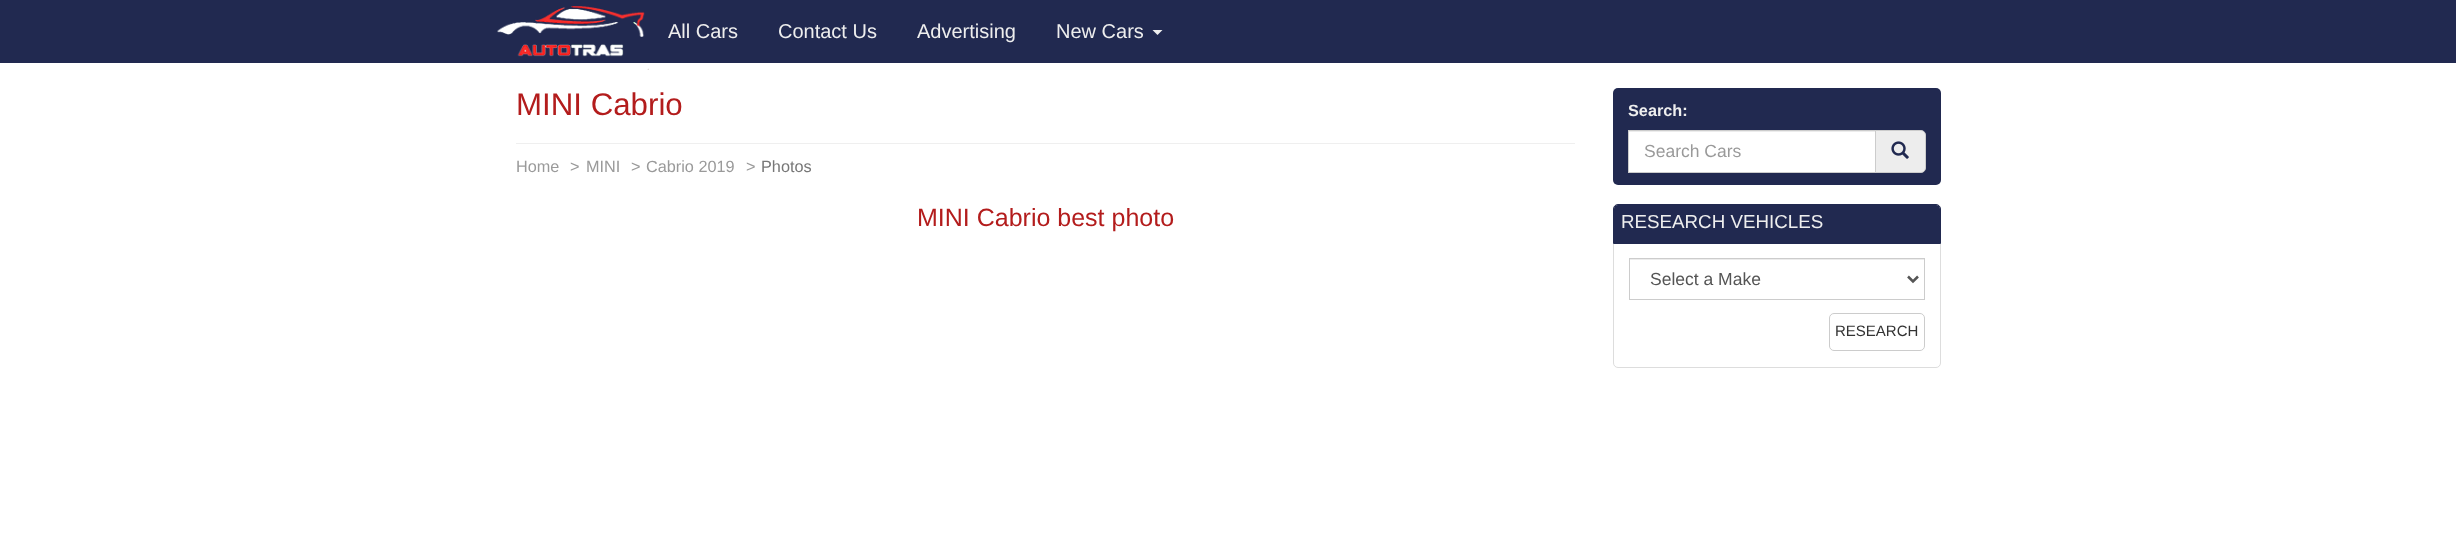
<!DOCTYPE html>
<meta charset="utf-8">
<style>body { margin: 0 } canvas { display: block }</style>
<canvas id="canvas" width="2456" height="550"></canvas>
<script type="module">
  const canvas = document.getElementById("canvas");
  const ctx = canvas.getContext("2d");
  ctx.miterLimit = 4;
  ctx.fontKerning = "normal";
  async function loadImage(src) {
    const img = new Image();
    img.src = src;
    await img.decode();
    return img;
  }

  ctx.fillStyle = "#ffffff";
  ctx.fillRect(0, 0, 2456, 550);
  ctx.fillStyle = "#212950";
  ctx.fillRect(0, 0, 2456, 63);
  ctx.drawImage(await loadImage("img1.png"), 497, 6, 152, 64);
  ctx.font = "20px Liberation Sans";
  ctx.fillStyle = "#eeeeee";
  ctx.fillText("All Cars", 668, 38);
  ctx.fillText("Contact Us", 778, 38);
  ctx.fillText("Advertising", 917, 38);
  ctx.fillText("New Cars", 1056, 38);
  ctx.beginPath();
  ctx.moveTo(1152.5, 30);
  ctx.lineTo(1162.5, 30);
  ctx.lineTo(1157.5, 35);
  ctx.closePath();
  ctx.fill();
  ctx.fillStyle = "#efefef";
  ctx.fillRect(516, 143, 1059, 1);
  ctx.font = "31.25px Liberation Sans";
  ctx.fillStyle = "#b31c1c";
  ctx.fillText("MINI Cabrio", 516, 115);
  ctx.font = "16.25px Liberation Sans";
  ctx.fillStyle = "#9a9a9a";
  ctx.fillText("Home", 516, 172);
  ctx.fillText(">", 570, 172);
  ctx.fillText("MINI", 586, 172);
  ctx.fillText(">", 631, 172);
  ctx.fillText("Cabrio 2019", 646, 172);
  ctx.fillText(">", 746, 172);
  ctx.fillStyle = "#777777";
  ctx.fillText("Photos", 761, 172);
  ctx.font = "25px Liberation Sans";
  ctx.fillStyle = "#b31c1c";
  ctx.fillText("MINI Cabrio best photo", 917, 226);
  ctx.fillStyle = "#212950";
  ctx.beginPath();
  ctx.roundRect(1613, 88, 328, 97, 5);
  ctx.fill();
  ctx.font = "bold 16.25px Liberation Sans";
  ctx.fillStyle = "#eeeeee";
  ctx.fillText("Search:", 1628, 116);
  ctx.fillStyle = "#ffffff";
  ctx.fillRect(1629, 132, 246, 40);
  ctx.fillStyle = "#ececec";
  ctx.fillRect(1629, 131, 246, 1);
  ctx.strokeStyle = "#cccccc";
  ctx.strokeRect(1628.5, 130.5, 247, 42);
  ctx.font = "17.5px Liberation Sans";
  ctx.fillStyle = "#9a9a9a";
  ctx.fillText("Search Cars", 1644, 157);
  ctx.fillStyle = "#ededed";
  ctx.beginPath();
  ctx.roundRect(1875.5, 130.5, 50, 42, [0, 4.5, 4.5, 0]);
  ctx.fill();
  ctx.stroke();
  ctx.drawImage(await loadImage("img2.png"), 1891, 141, 18, 18);
  ctx.beginPath();
  ctx.roundRect(1613.5, 204.5, 327, 163, 4.5);
  ctx.strokeStyle = "#dddddd";
  ctx.stroke();
  ctx.beginPath();
  ctx.roundRect(1613.5, 204.5, 327, 39, [4.5, 4.5, 0, 0]);
  ctx.strokeStyle = "#212950";
  ctx.stroke();
  ctx.fillStyle = "#212950";
  ctx.beginPath();
  ctx.roundRect(1614, 205, 326, 38, [4, 4, 0, 0]);
  ctx.fill();
  ctx.font = "18.75px Liberation Sans";
  ctx.fillStyle = "#eeeeee";
  ctx.fillText("RESEARCH VEHICLES", 1621, 228);
  ctx.fillStyle = "#ececec";
  ctx.fillRect(1630, 259, 294, 1);
  ctx.strokeStyle = "#cccccc";
  ctx.strokeRect(1629.5, 258.5, 295, 41);
  ctx.beginPath();
  ctx.moveTo(1908, 276.5);
  ctx.lineTo(1913, 281.5);
  ctx.lineTo(1918, 276.5);
  ctx.strokeStyle = "#555555";
  ctx.lineWidth = 2.5;
  ctx.stroke();
  ctx.font = "17.5px Liberation Sans";
  ctx.fillStyle = "#555555";
  ctx.fillText("Select a Make", 1650, 285);
  ctx.beginPath();
  ctx.roundRect(1829.5, 313.5, 95, 37, 4.5);
  ctx.strokeStyle = "#cccccc";
  ctx.lineWidth = 1;
  ctx.stroke();
  ctx.font = "15px Liberation Sans";
  ctx.fillStyle = "#333333";
  ctx.fillText("RESEARCH", 1835, 336);
</script>
